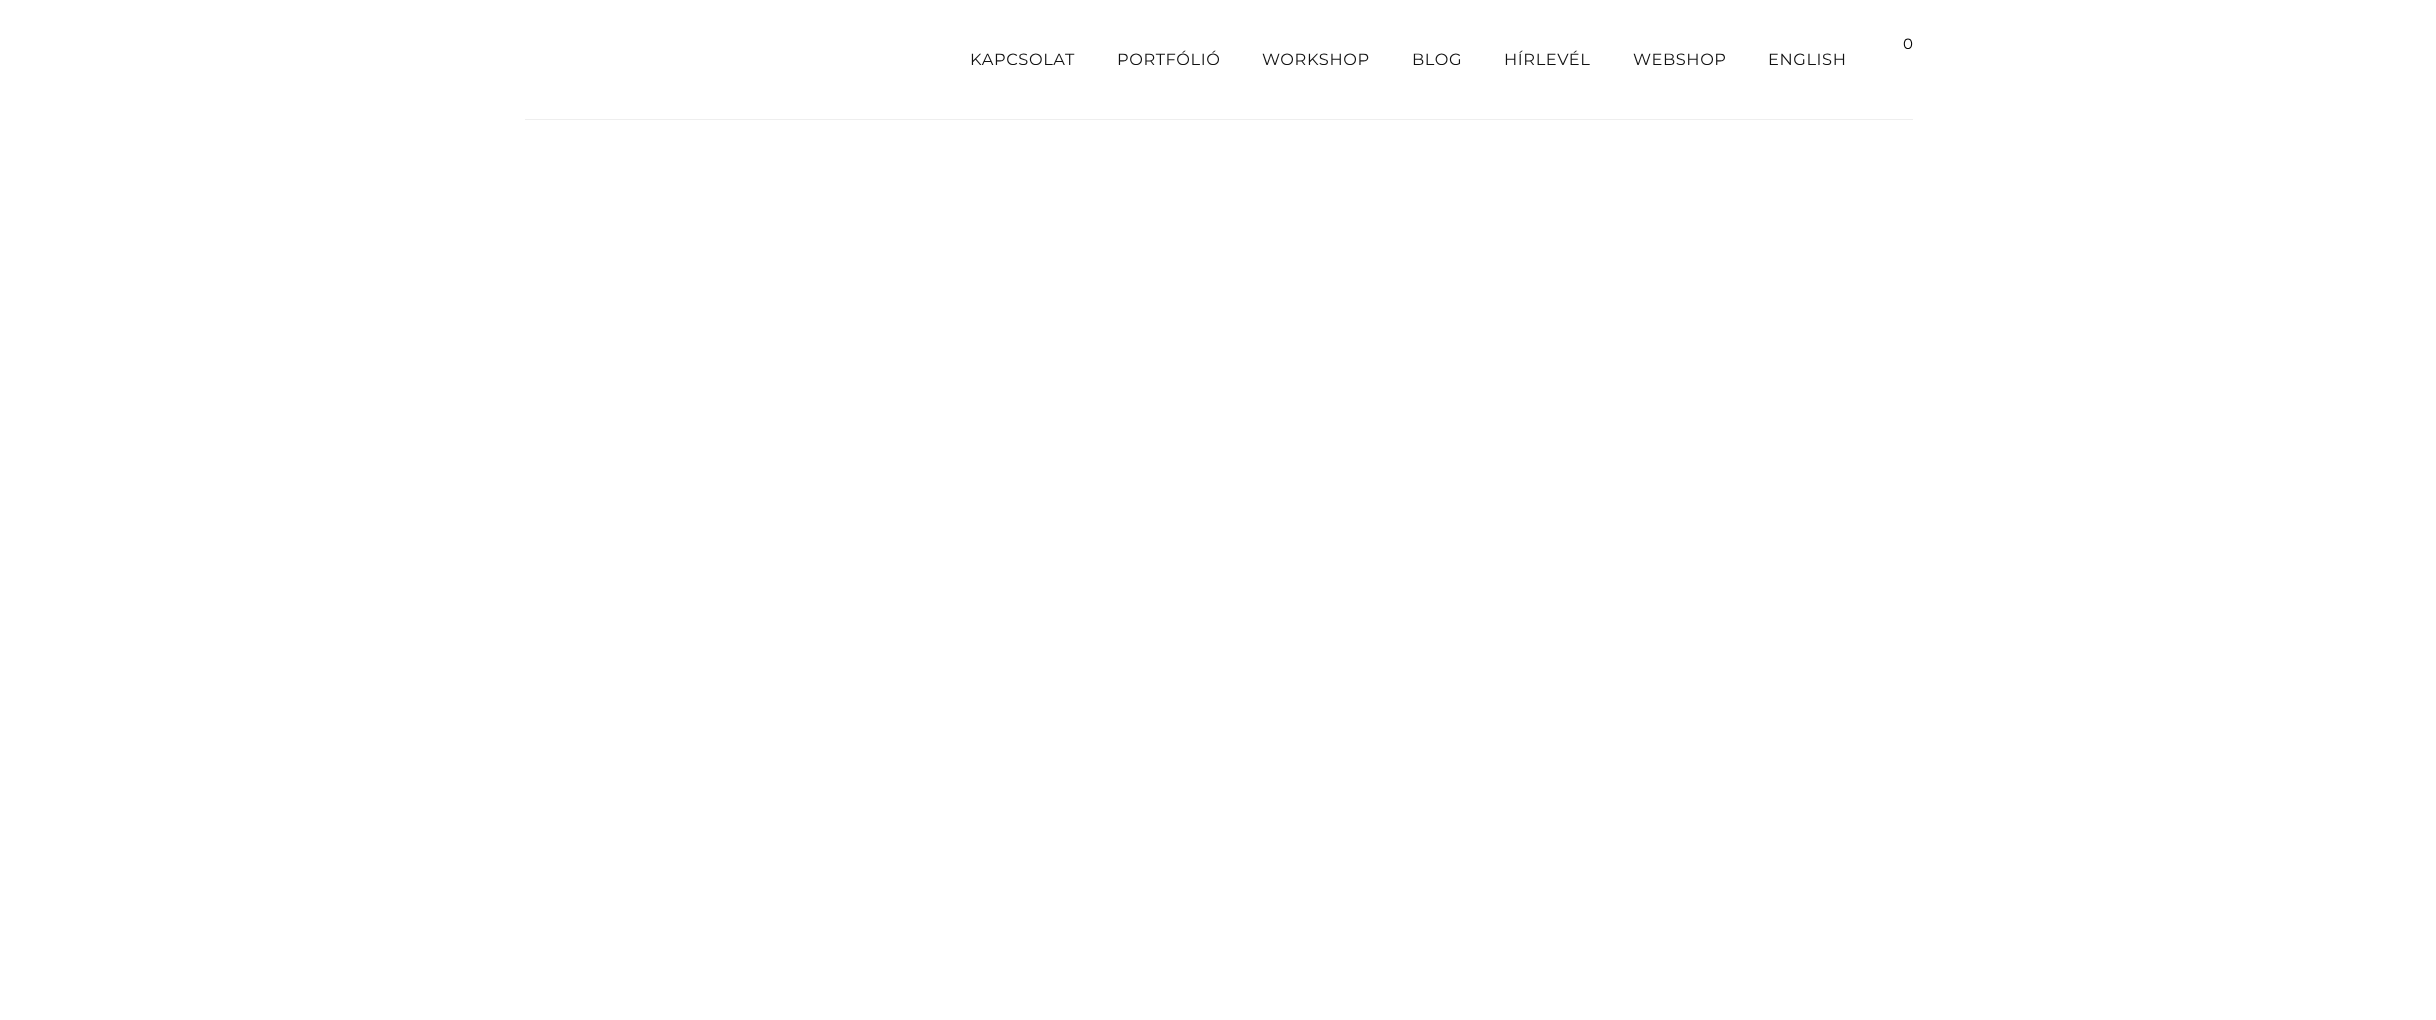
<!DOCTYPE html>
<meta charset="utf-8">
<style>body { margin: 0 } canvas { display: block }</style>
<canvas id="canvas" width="2436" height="1020"></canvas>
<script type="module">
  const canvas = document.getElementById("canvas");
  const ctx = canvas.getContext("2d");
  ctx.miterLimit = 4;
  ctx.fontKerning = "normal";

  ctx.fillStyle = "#ffffff";
  ctx.fillRect(0, 0, 2436, 1020);
  ctx.fillStyle = "#eeeeee";
  ctx.fillRect(525, 119, 1388, 1);
  ctx.font = "100 15px Montserrat";
  ctx.fillStyle = "#000000";
  ctx.fillText("0", 1903, 49);
  ctx.letterSpacing = "0.6px";
  ctx.font = "100 16.25px Montserrat";
  ctx.fillStyle = "#111111";
  ctx.fillText("KAPCSOLAT", 970, 65);
  ctx.fillText("PORTFÓLIÓ", 1117, 65);
  ctx.fillText("WORKSHOP", 1262, 65);
  ctx.fillText("BLOG", 1412, 65);
  ctx.fillText("HÍRLEVÉL", 1504, 65);
  ctx.fillText("WEBSHOP", 1633, 65);
  ctx.fillText("ENGLISH", 1768, 65);
</script>
